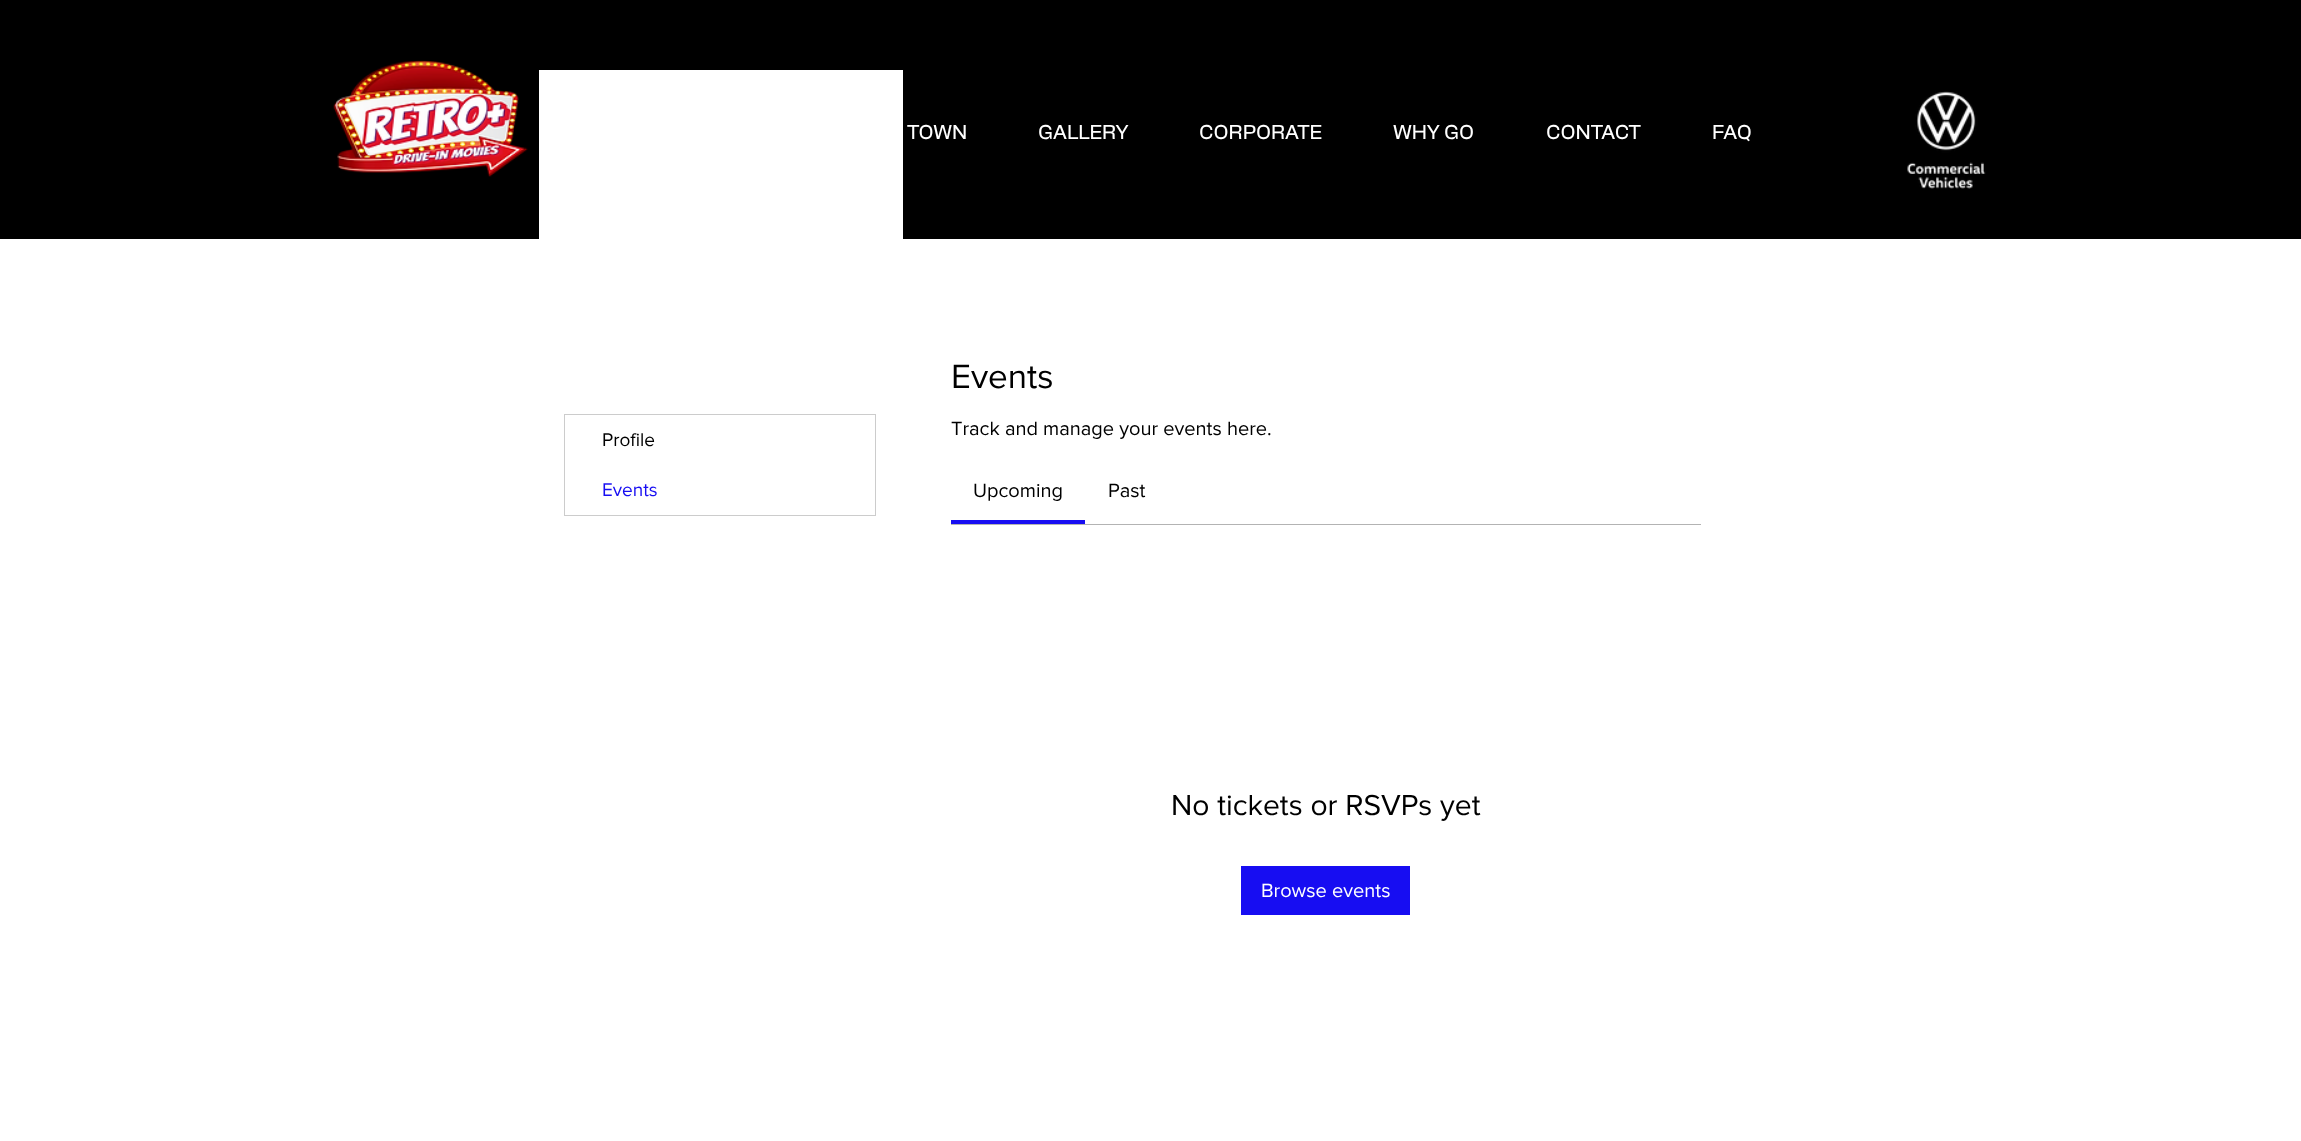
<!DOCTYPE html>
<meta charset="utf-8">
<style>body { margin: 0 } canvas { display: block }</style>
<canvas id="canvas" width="2301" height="1141"></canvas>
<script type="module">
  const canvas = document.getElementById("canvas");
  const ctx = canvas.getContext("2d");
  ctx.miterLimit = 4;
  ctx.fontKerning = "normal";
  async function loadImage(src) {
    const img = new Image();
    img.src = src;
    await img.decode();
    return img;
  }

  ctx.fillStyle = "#ffffff";
  ctx.fillRect(0, 0, 2301, 1141);
  ctx.fillStyle = "#000000";
  ctx.fillRect(0, 0, 2301, 239);
  ctx.drawImage(await loadImage("img1.png"), 333, 60, 195, 117);
  ctx.font = "20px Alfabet";
  ctx.fillStyle = "#ffffff";
  ctx.fillText("TOWN", 907, 139);
  ctx.fillText("GALLERY", 1038, 139);
  ctx.fillText("CORPORATE", 1199, 139);
  ctx.fillText("WHY GO", 1393, 139);
  ctx.fillText("CONTACT", 1546, 139);
  ctx.fillText("FAQ", 1712, 139);
  ctx.drawImage(await loadImage("img2.png"), 1907, 91, 79, 98);
  ctx.fillRect(539, 70, 364, 169);
  ctx.strokeStyle = "#cccccc";
  ctx.strokeRect(564.5, 414.5, 311, 101);
  ctx.font = "19px 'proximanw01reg'";
  ctx.fillStyle = "#000000";
  ctx.fillText("Profile", 602, 446);
  ctx.fillStyle = "#170df2";
  ctx.fillText("Events", 602, 496);
  ctx.font = "35px 'proximanw01reg'";
  ctx.fillStyle = "#000000";
  ctx.fillText("Events", 951, 388);
  ctx.font = "20px 'proximanw01reg'";
  ctx.fillText("Track and manage your events here.", 951, 435);
  ctx.fillStyle = "#170df2";
  ctx.fillRect(951, 520, 134, 4);
  ctx.fillStyle = "#000000";
  ctx.fillText("Upcoming", 973, 497);
  ctx.fillText("Past", 1108, 497);
  ctx.fillStyle = "#b3b3b3";
  ctx.fillRect(951, 524, 750, 1);
  ctx.font = "30px 'proximanw01reg'";
  ctx.fillStyle = "#000000";
  ctx.fillText("No tickets or RSVPs yet", 1171, 815);
  ctx.fillStyle = "#170df2";
  ctx.fillRect(1241, 866, 169, 49);
  ctx.font = "20px 'proximanw01reg'";
  ctx.fillStyle = "#ffffff";
  ctx.fillText("Browse events", 1261, 897);
</script>
